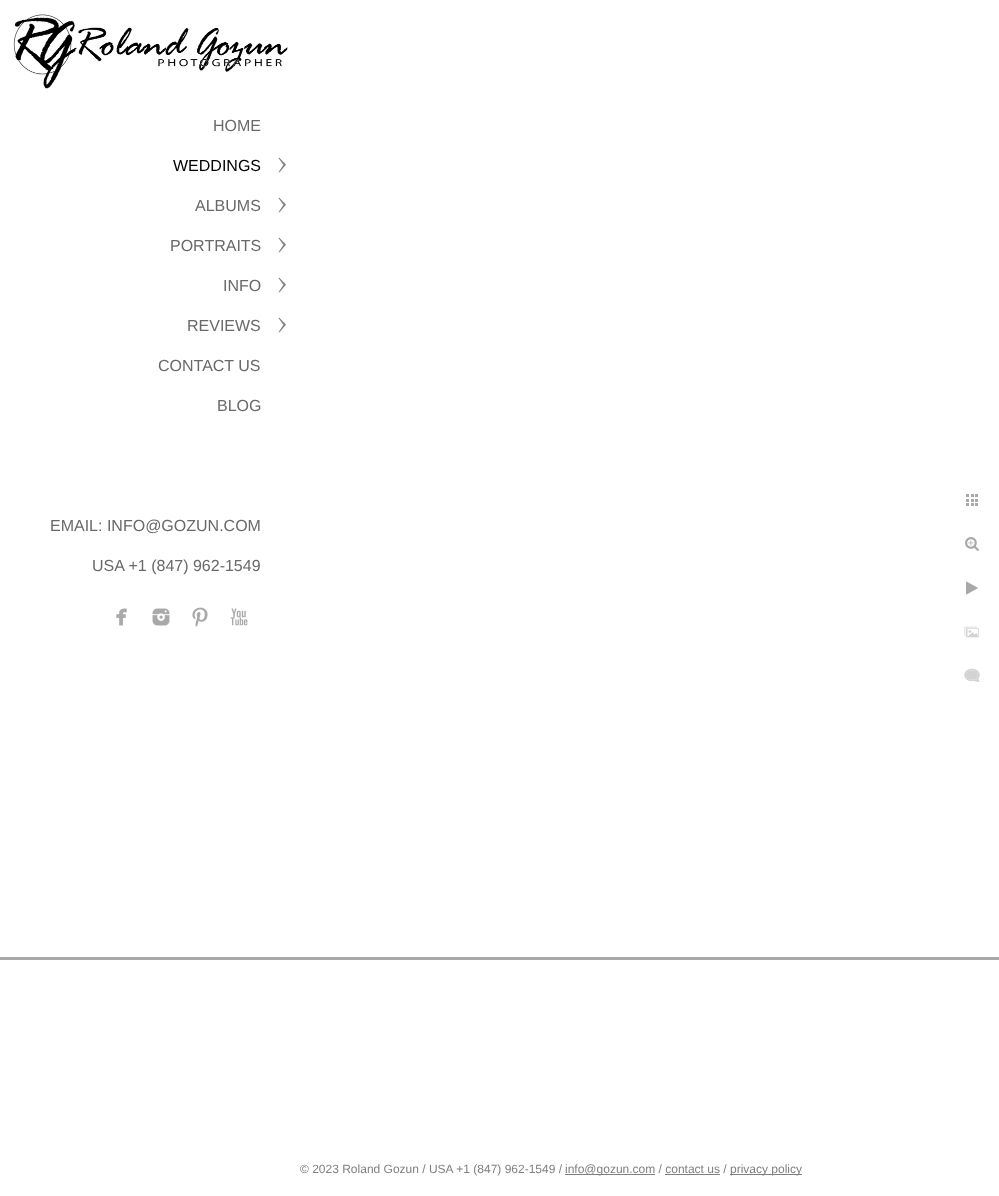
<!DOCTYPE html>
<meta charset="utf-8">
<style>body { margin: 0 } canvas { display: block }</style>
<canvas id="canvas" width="999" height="1196"></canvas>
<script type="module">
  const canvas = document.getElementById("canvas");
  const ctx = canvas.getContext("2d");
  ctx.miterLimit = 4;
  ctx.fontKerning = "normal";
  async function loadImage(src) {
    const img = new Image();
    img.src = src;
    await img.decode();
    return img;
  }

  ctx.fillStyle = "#ffffff";
  ctx.fillRect(0, 0, 999, 1196);
  ctx.drawImage(await loadImage("img1.png"), 13, 14, 275, 75);
  ctx.font = "16px Liberation Sans";
  ctx.fillStyle = "#696969";
  ctx.fillText("HOME", 213, 131);
  ctx.fillStyle = "#000000";
  ctx.fillText("WEDDINGS", 173, 171);
  ctx.drawImage(await loadImage("img2.png"), 278, 157, 8, 16);
  ctx.fillStyle = "#696969";
  ctx.fillText("ALBUMS", 195, 211);
  ctx.drawImage(await loadImage("img2.png"), 278, 197, 8, 16);
  ctx.fillText("PORTRAITS", 170, 251);
  ctx.drawImage(await loadImage("img2.png"), 278, 237, 8, 16);
  ctx.fillText("INFO", 223, 291);
  ctx.drawImage(await loadImage("img2.png"), 278, 277, 8, 16);
  ctx.fillText("REVIEWS", 187, 331);
  ctx.drawImage(await loadImage("img2.png"), 278, 317, 8, 16);
  ctx.fillText("CONTACT US", 158, 371);
  ctx.fillText("BLOG", 217, 411);
  ctx.fillText("EMAIL: INFO@GOZUN.COM", 50, 531);
  ctx.fillText("USA +1 (847) 962-1549", 92, 571);
  ctx.drawImage(await loadImage("img3.png"), 116, 608, 11, 18);
  ctx.drawImage(await loadImage("img4.png"), 152, 608, 18, 18);
  ctx.drawImage(await loadImage("img5.png"), 192, 607, 16, 20);
  ctx.drawImage(await loadImage("img6.png"), 230, 608, 18, 18);
  ctx.drawImage(await loadImage("img7.png"), 966, 494, 12, 12);
  ctx.drawImage(await loadImage("img8.png"), 965, 537, 14, 14);
  ctx.drawImage(await loadImage("img9.png"), 966, 581, 12, 14);
  ctx.drawImage(await loadImage("img10.png"), 964, 626, 15, 12);
  ctx.drawImage(await loadImage("img11.png"), 964, 668, 16, 14);
  ctx.fillStyle = "#a9a9a9";
  ctx.fillRect(0, 957, 999, 3);
  ctx.font = "12px Liberation Sans";
  ctx.fillStyle = "#808080";
  ctx.fillText("© 2023 Roland Gozun / USA +1 (847) 962-1549 /", 300, 1173);
  ctx.fillRect(565, 1174, 90, 1);
  ctx.fillText("info@gozun.com / contact us /", 565, 1173);
  ctx.fillRect(730, 1174, 72, 1);
  ctx.fillText("privacy policy", 730, 1173);
  ctx.fillRect(665, 1174, 55, 1);
</script>
